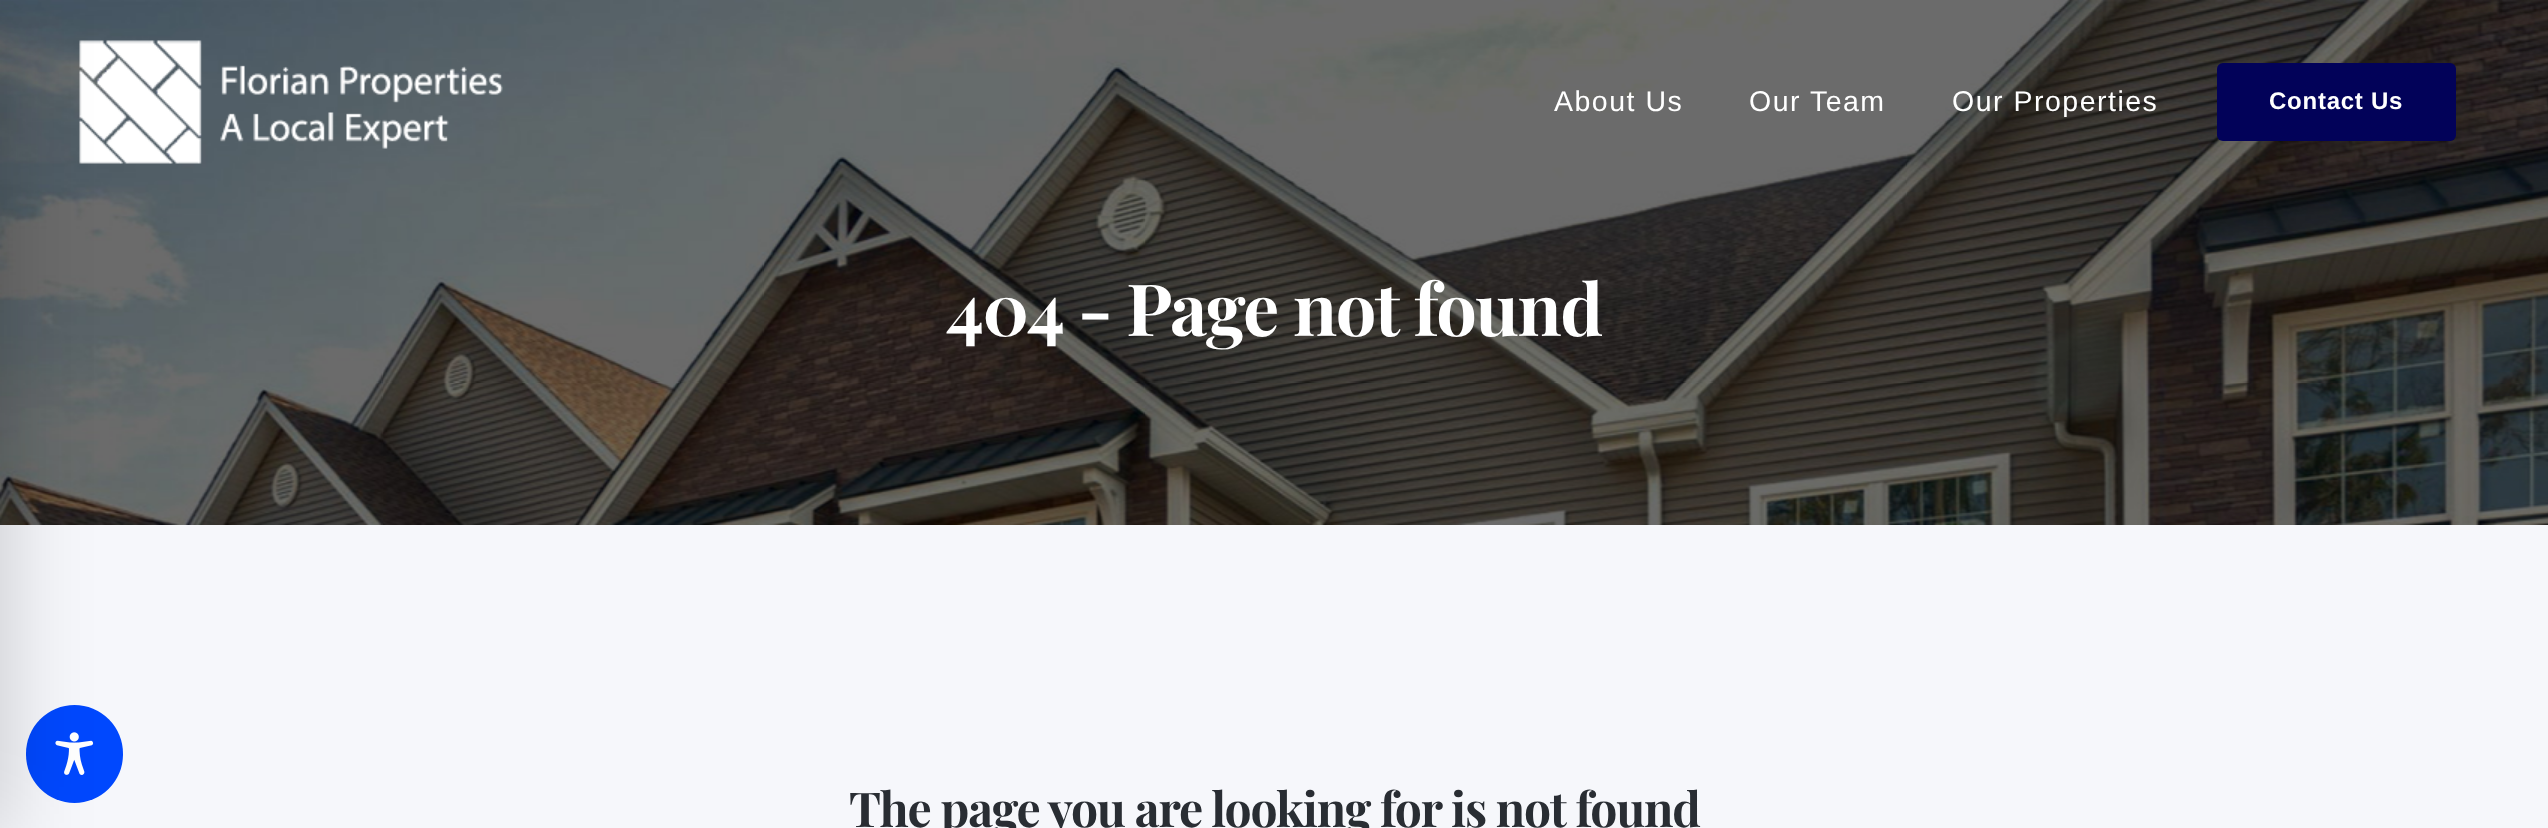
<!DOCTYPE html>
<meta charset="utf-8">
<style>body { margin: 0 } canvas { display: block }</style>
<canvas id="canvas" width="2548" height="828"></canvas>
<script type="module">
  const canvas = document.getElementById("canvas");
  const ctx = canvas.getContext("2d");
  ctx.miterLimit = 4;
  ctx.fontKerning = "normal";
  async function loadImage(src) {
    const img = new Image();
    img.src = src;
    await img.decode();
    return img;
  }

  ctx.fillStyle = "#f6f7fb";
  ctx.fillRect(0, 0, 2548, 828);
  ctx.drawImage(await loadImage("img2.png"), 0, 0, 2548, 525);
  ctx.drawImage(await loadImage("img1.png"), 79, 40, 424, 124);
  ctx.fillStyle = "#0048fe";
  ctx.beginPath();
  ctx.roundRect(26, 705, 97, 98, 48.5);
  ctx.fill();
  ctx.drawImage(await loadImage("img3.png"), 55, 732, 39, 43);
  ctx.fillStyle = "rgba(0, 0, 0, 0.2)";
  ctx.filter = "blur(45px)";
  ctx.beginPath();
  ctx.rect(-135, 15, 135, 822);
  ctx.fill();
  ctx.filter = "none";
  ctx.letterSpacing = "1.5px";
  ctx.font = "28.5px Liberation Sans";
  ctx.fillStyle = "#ffffff";
  ctx.fillText("About Us", 1554, 111);
  ctx.fillText("Our Team", 1749, 111);
  ctx.fillText("Our Properties", 1952, 111);
  ctx.fillStyle = "#020259";
  ctx.beginPath();
  ctx.roundRect(2217, 63, 239, 78, 6);
  ctx.fill();
  ctx.letterSpacing = "0.75px";
  ctx.font = "bold 24px Liberation Sans";
  ctx.fillStyle = "#ffffff";
  ctx.fillText("Contact Us", 2269, 109);
  ctx.letterSpacing = "-1.5px";
  ctx.font = "bold 72px Playfair Display";
  ctx.fillText("404 - Page not found", 946, 336);
  ctx.letterSpacing = "-1.2px";
  ctx.font = "bold 48px Playfair Display";
  ctx.fillStyle = "#292d33";
  ctx.fillText("The page you are looking for is not found", 849, 827);
</script>
